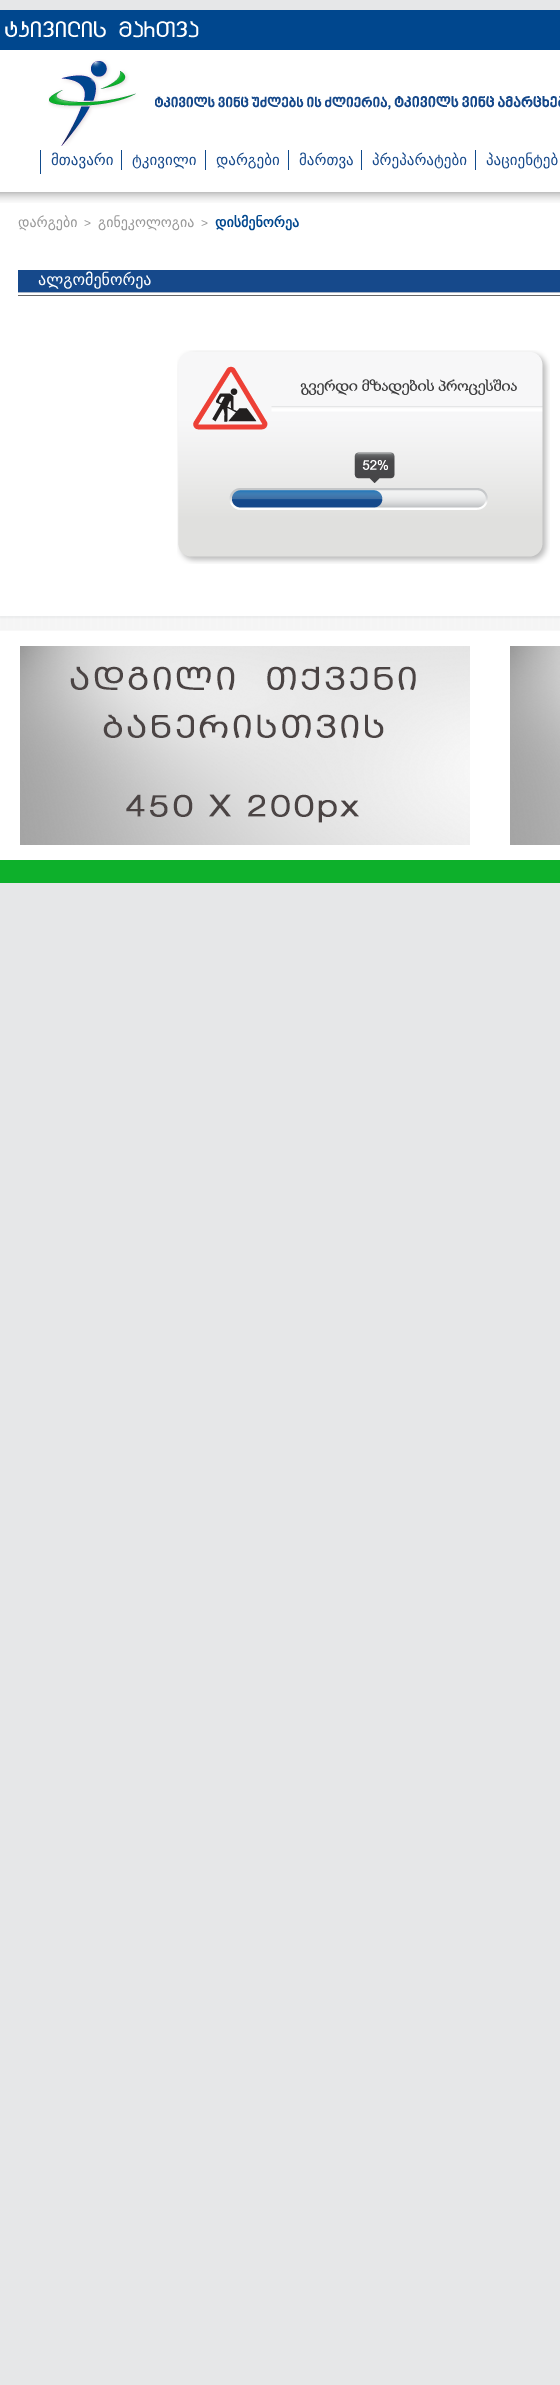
<!DOCTYPE html>
<meta charset="utf-8">
<style>body { margin: 0 } canvas { display: block }</style>
<canvas id="canvas" width="560" height="2385"></canvas>
<script type="module">
  const canvas = document.getElementById("canvas");
  const ctx = canvas.getContext("2d");
  ctx.miterLimit = 4;
  ctx.fontKerning = "normal";
  async function loadImage(src) {
    const img = new Image();
    img.src = src;
    await img.decode();
    return img;
  }

  ctx.fillStyle = "#e6e7e8";
  ctx.fillRect(0, 0, 560, 2385);
  ctx.fillStyle = "#00478e";
  ctx.fillRect(0, 10, 560, 40);
  ctx.drawImage(await loadImage("img1.png"), 5, 21, 194, 17);
  ctx.fillStyle = "#ffffff";
  ctx.fillRect(0, 50, 560, 810);
  ctx.drawImage(await loadImage("img2.png"), 48, 59, 512, 87);
  ctx.fillStyle = "#114b8c";
  ctx.fillRect(40, 150, 1, 24);
  ctx.fillRect(121, 150, 1, 20);
  ctx.font = "15px DejaVu Sans";
  ctx.fillStyle = "#16498b";
  ctx.fillText("მთავარი", 51, 165);
  ctx.fillStyle = "#114b8c";
  ctx.fillRect(205, 150, 1, 20);
  ctx.fillStyle = "#16498b";
  ctx.fillText("ტკივილი", 132, 165);
  ctx.fillStyle = "#114b8c";
  ctx.fillRect(288, 150, 1, 20);
  ctx.fillStyle = "#16498b";
  ctx.fillText("დარგები", 216, 165);
  ctx.fillStyle = "#114b8c";
  ctx.fillRect(361, 150, 1, 20);
  ctx.fillStyle = "#16498b";
  ctx.fillText("მართვა", 299, 165);
  ctx.fillStyle = "#114b8c";
  ctx.fillRect(475, 150, 1, 20);
  ctx.fillStyle = "#16498b";
  ctx.fillText("პრეპარატები", 372, 165);
  ctx.fillText("პაციენტებ", 486, 165);
  ctx.drawImage(await loadImage("img3.png"), 0, 192, 560, 11);
  ctx.font = "14px DejaVu Sans";
  ctx.fillStyle = "#999999";
  ctx.fillText("დარგები", 18, 227);
  ctx.font = "12px Liberation Sans";
  ctx.fillText(">", 84, 227);
  ctx.font = "14px DejaVu Sans";
  ctx.fillText("გინეკოლოგია", 98, 227);
  ctx.font = "12px Liberation Sans";
  ctx.fillText(">", 201, 227);
  ctx.font = "bold 14px DejaVu Sans";
  ctx.fillStyle = "#00478e";
  ctx.fillText("დისმენორეა", 215, 227);
  ctx.drawImage(await loadImage("img4.png"), 18, 270, 542, 26);
  ctx.font = "16px DejaVu Sans";
  ctx.fillStyle = "#ffffff";
  ctx.fillText("ალგომენორეა", 38, 285);
  ctx.drawImage(await loadImage("img5.png"), 177, 350, 373, 214);
  ctx.drawImage(await loadImage("img6.png"), 0, 616, 560, 15);
  ctx.drawImage(await loadImage("img7.png"), 20, 646, 450, 199);
  ctx.drawImage(await loadImage("img8.png"), 510, 646, 50, 199);
  ctx.fillStyle = "#0db02b";
  ctx.fillRect(0, 860, 560, 23);
</script>
